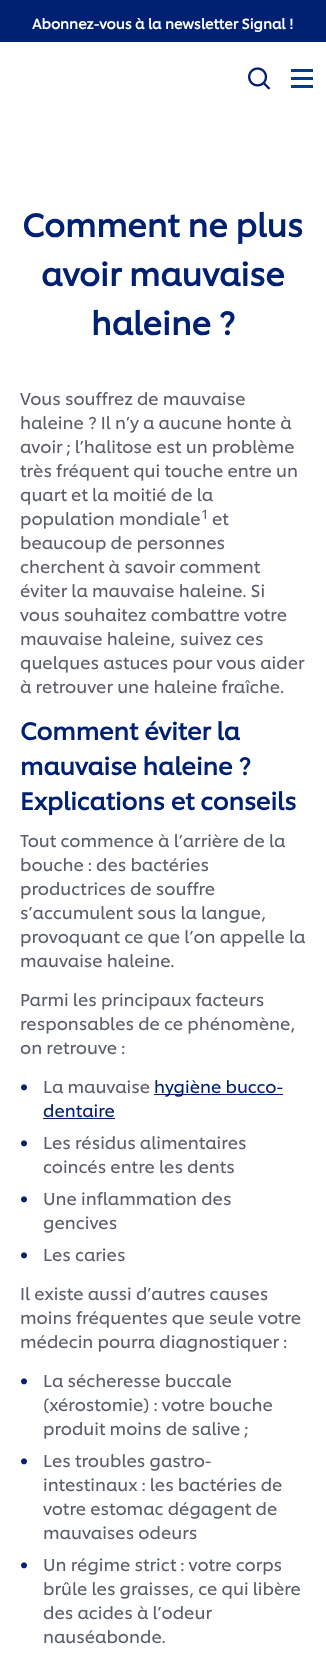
<!DOCTYPE html>
<meta charset="utf-8">
<style>body { margin: 0 } canvas { display: block }</style>
<canvas id="canvas" width="326" height="1657"></canvas>
<script type="module">
  const canvas = document.getElementById("canvas");
  const ctx = canvas.getContext("2d");
  ctx.miterLimit = 4;
  ctx.fontKerning = "normal";
  async function loadImage(src) {
    const img = new Image();
    img.src = src;
    await img.decode();
    return img;
  }

  ctx.fillStyle = "#ffffff";
  ctx.fillRect(0, 0, 326, 1657);
  ctx.fillStyle = "#002072";
  ctx.fillRect(0, 0, 326, 42);
  ctx.font = "bold 14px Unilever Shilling";
  ctx.fillStyle = "#ffffff";
  ctx.fillText("Abonnez-vous à la newsletter Signal !", 32, 29);
  ctx.drawImage(await loadImage("img1.png"), 248, 67, 22, 23);
  ctx.fillStyle = "#003e83";
  ctx.fillRect(291, 69, 22, 3);
  ctx.fillRect(291, 77, 22, 3);
  ctx.fillRect(291, 85, 22, 3);
  ctx.font = "bold 32px Unilever Shilling";
  ctx.fillStyle = "#002072";
  ctx.fillText("Comment ne plus", 22, 237);
  ctx.fillText("avoir mauvaise", 41, 286);
  ctx.fillText("haleine ?", 91, 335);
  ctx.font = "17px Unilever Shilling";
  ctx.fillStyle = "#5b5f6b";
  ctx.fillText("Vous souffrez de mauvaise", 20, 405);
  ctx.fillText("haleine ? Il n’y a aucune honte à", 20, 429);
  ctx.fillText("avoir ; l’halitose est un problème", 20, 453);
  ctx.fillText("très fréquent qui touche entre un", 20, 477);
  ctx.fillText("quart et la moitié de la", 20, 501);
  ctx.fillText("population mondiale", 20, 525);
  ctx.font = "13px Unilever Shilling";
  ctx.fillText("1", 201, 519);
  ctx.font = "17px Unilever Shilling";
  ctx.fillText("et", 212, 525);
  ctx.fillText("beaucoup de personnes", 20, 549);
  ctx.fillText("cherchent à savoir comment", 20, 573);
  ctx.fillText("éviter la mauvaise haleine. Si", 20, 597);
  ctx.fillText("vous souhaitez combattre votre", 20, 621);
  ctx.fillText("mauvaise haleine, suivez ces", 20, 645);
  ctx.fillText("quelques astuces pour vous aider", 20, 669);
  ctx.fillText("à retrouver une haleine fraîche.", 20, 693);
  ctx.font = "bold 24px Unilever Shilling";
  ctx.fillStyle = "#002072";
  ctx.fillText("Comment éviter la", 20, 740);
  ctx.fillText("mauvaise haleine ?", 20, 775);
  ctx.fillText("Explications et conseils", 20, 810);
  ctx.font = "17px Unilever Shilling";
  ctx.fillStyle = "#5b5f6b";
  ctx.fillText("Tout commence à l’arrière de la", 20, 847);
  ctx.fillText("bouche : des bactéries", 20, 871);
  ctx.fillText("productrices de souffre", 20, 895);
  ctx.fillText("s’accumulent sous la langue,", 20, 919);
  ctx.fillText("provoquant ce que l’on appelle la", 20, 943);
  ctx.fillText("mauvaise haleine.", 20, 967);
  ctx.fillText("Parmi les principaux facteurs", 20, 1006);
  ctx.fillText("responsables de ce phénomène,", 20, 1030);
  ctx.fillText("on retrouve :", 20, 1054);
  ctx.drawImage(await loadImage("img2.png"), 21, 1084, 6, 7);
  ctx.fillText("La mauvaise", 43, 1093);
  ctx.fillStyle = "#002072";
  ctx.fillRect(154, 1094, 129, 1);
  ctx.fillText("hygiène bucco-", 154, 1093);
  ctx.fillText("dentaire", 43, 1117);
  ctx.fillRect(43, 1118, 72, 1);
  ctx.drawImage(await loadImage("img2.png"), 21, 1140, 6, 7);
  ctx.fillStyle = "#5b5f6b";
  ctx.fillText("Les résidus alimentaires", 43, 1149);
  ctx.fillText("coincés entre les dents", 43, 1173);
  ctx.drawImage(await loadImage("img2.png"), 21, 1196, 6, 7);
  ctx.fillText("Une inflammation des", 43, 1205);
  ctx.fillText("gencives", 43, 1229);
  ctx.drawImage(await loadImage("img2.png"), 21, 1252, 6, 7);
  ctx.fillText("Les caries", 43, 1261);
  ctx.fillText("Il existe aussi d’autres causes", 20, 1300);
  ctx.fillText("moins fréquentes que seule votre", 20, 1324);
  ctx.fillText("médecin pourra diagnostiquer :", 20, 1348);
  ctx.drawImage(await loadImage("img2.png"), 21, 1378, 6, 7);
  ctx.fillText("La sécheresse buccale", 43, 1387);
  ctx.fillText("(xérostomie) : votre bouche", 43, 1411);
  ctx.fillText("produit moins de salive ;", 43, 1435);
  ctx.drawImage(await loadImage("img2.png"), 21, 1458, 6, 7);
  ctx.fillText("Les troubles gastro-", 43, 1467);
  ctx.fillText("intestinaux : les bactéries de", 43, 1491);
  ctx.fillText("votre estomac dégagent de", 43, 1515);
  ctx.fillText("mauvaises odeurs", 43, 1539);
  ctx.drawImage(await loadImage("img2.png"), 21, 1562, 6, 7);
  ctx.fillText("Un régime strict : votre corps", 43, 1571);
  ctx.fillText("brûle les graisses, ce qui libère", 43, 1595);
  ctx.fillText("des acides à l’odeur", 43, 1619);
  ctx.fillText("nauséabonde.", 43, 1643);
</script>
